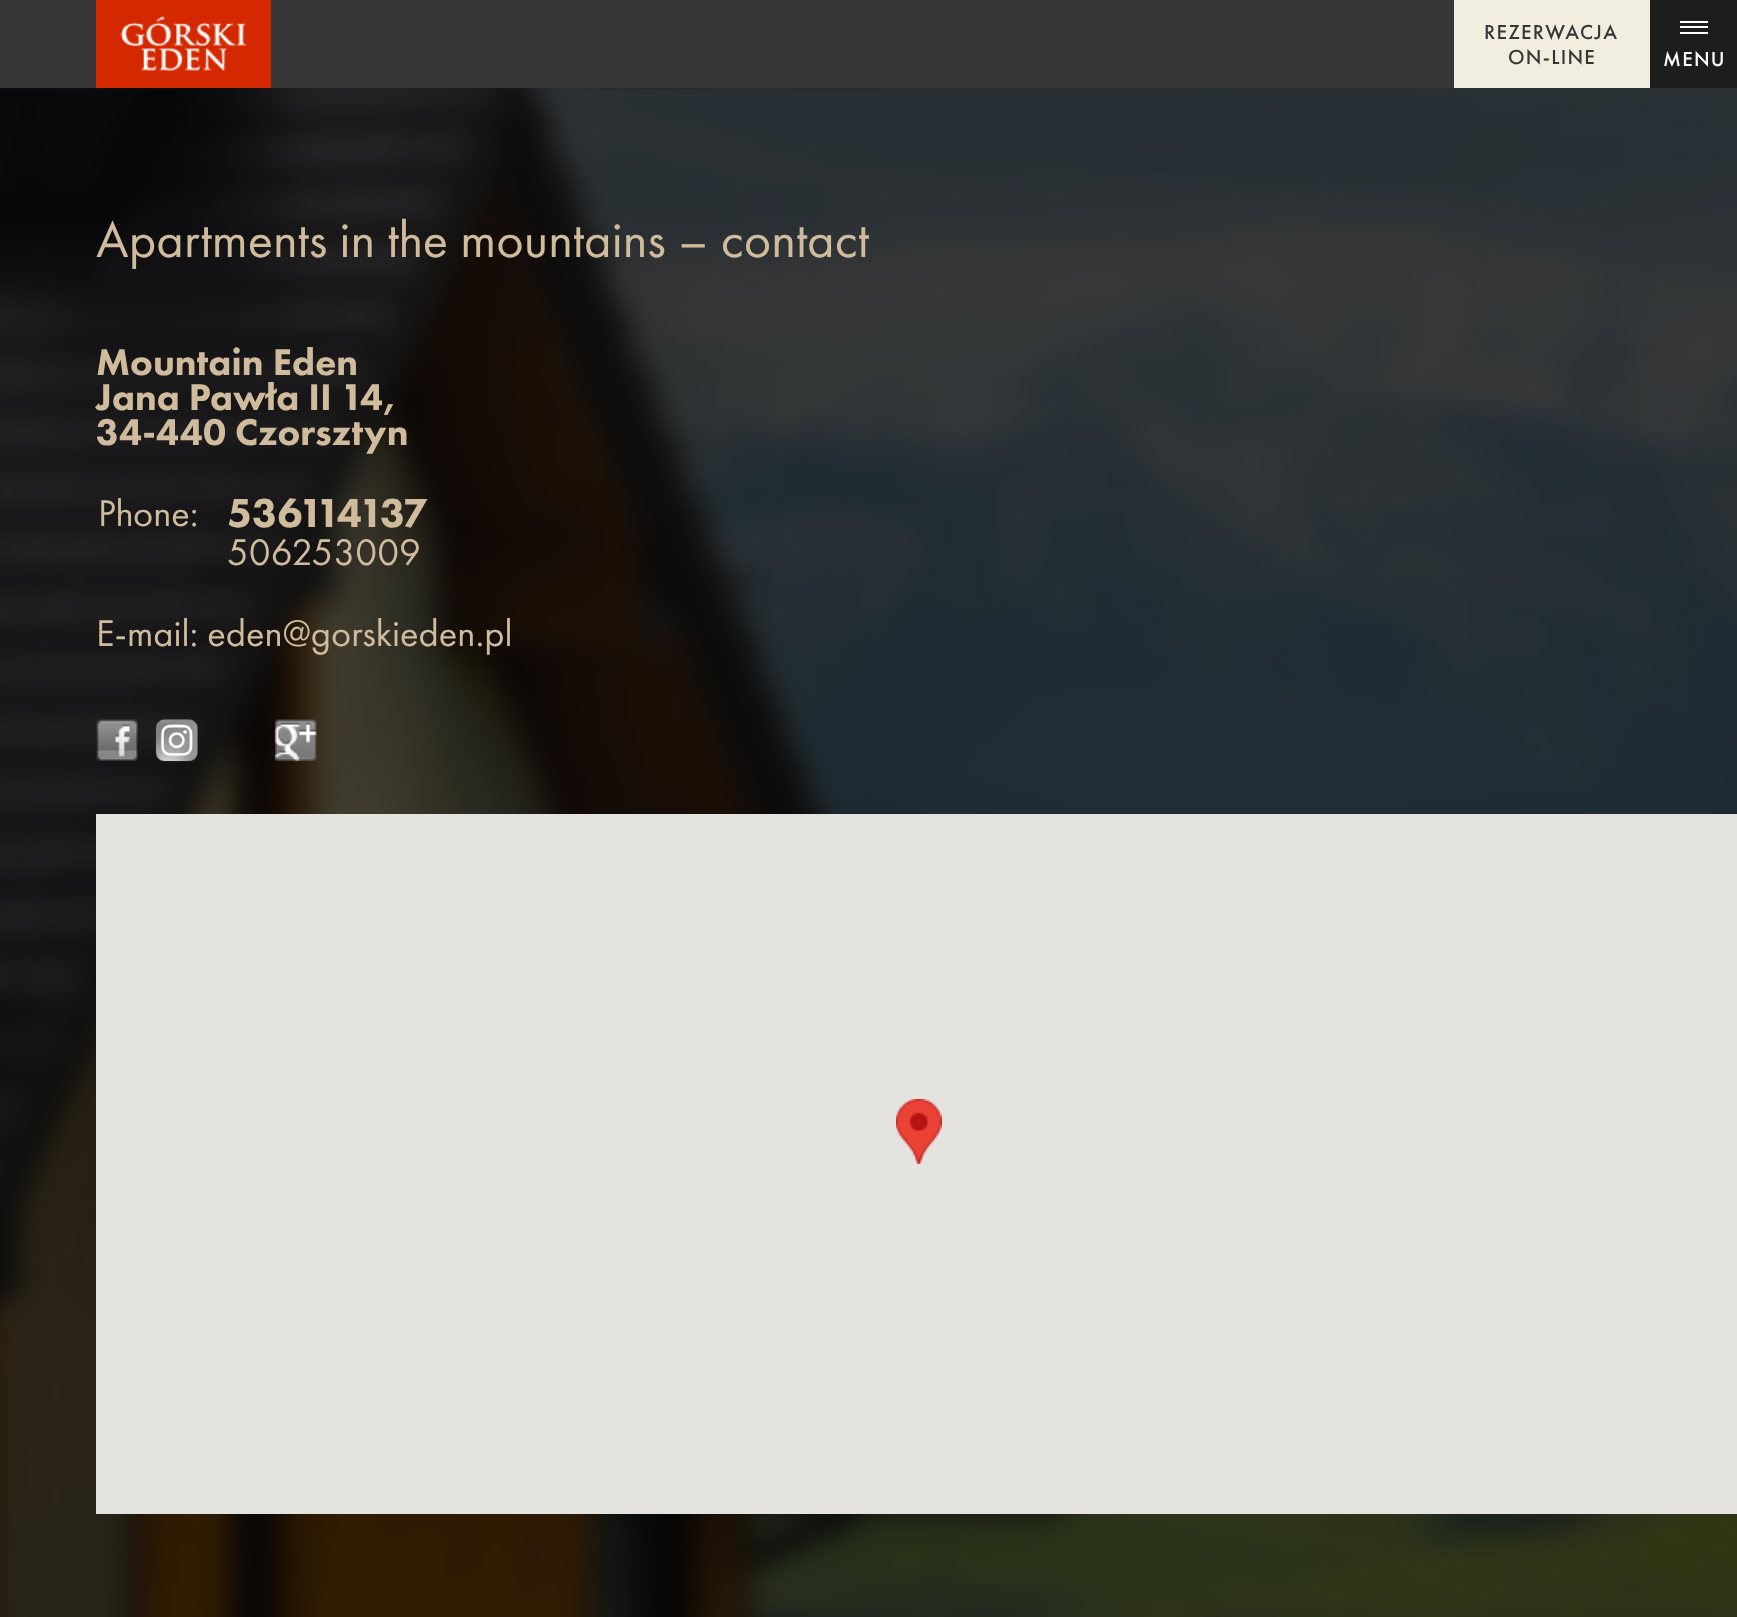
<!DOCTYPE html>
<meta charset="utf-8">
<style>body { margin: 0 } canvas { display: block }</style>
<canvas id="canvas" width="1737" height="1617"></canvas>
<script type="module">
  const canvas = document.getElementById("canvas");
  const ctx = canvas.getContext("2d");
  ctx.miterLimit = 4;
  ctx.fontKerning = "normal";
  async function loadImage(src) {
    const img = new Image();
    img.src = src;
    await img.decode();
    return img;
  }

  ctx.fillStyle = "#ffffff";
  ctx.fillRect(0, 0, 1737, 1617);
  ctx.fillStyle = "#363636";
  ctx.fillRect(0, 0, 1454, 88);
  ctx.fillStyle = "#d42800";
  ctx.fillRect(96, 0, 175, 88);
  ctx.drawImage(await loadImage("img1.png"), 120, 15, 127, 56);
  ctx.fillStyle = "#f1eee0";
  ctx.fillRect(1454, 0, 196, 88);
  ctx.letterSpacing = "1.25px";
  ctx.font = "500 21px Futura PT";
  ctx.fillStyle = "#363636";
  ctx.fillText("REZERWACJA", 1484, 39);
  ctx.fillText("ON-LINE", 1508, 64);
  ctx.fillStyle = "#1d1d1d";
  ctx.fillRect(1650, 0, 87, 88);
  ctx.fillStyle = "#ffffff";
  ctx.fillRect(1680, 26, 28, 2);
  ctx.fillRect(1680, 21, 28, 2);
  ctx.fillRect(1680, 32, 28, 2);
  ctx.fillText("MENU", 1663, 66);
  ctx.drawImage(await loadImage("img2.png"), 0, 88, 1737, 1529);
  ctx.letterSpacing = "0px";
  ctx.font = "52.5px Futura PT";
  ctx.fillStyle = "#d0bc9d";
  ctx.fillText("Apartments in the mountains – contact", 96, 257);
  ctx.font = "900 38.5px Futura PT";
  ctx.fillText("Mountain Eden", 96, 375);
  ctx.fillText("Jana Pawła II 14,", 96, 410);
  ctx.fillText("34-440 Czorsztyn", 96, 445);
  ctx.font = "38.5px Futura PT";
  ctx.fillText("Phone:", 98, 526);
  ctx.font = "900 42px Futura PT";
  ctx.fillText("536114137", 227, 527);
  ctx.font = "38.5px Futura PT";
  ctx.fillText("506253009", 227, 565);
  ctx.fillText("E-mail: eden@gorskieden.pl", 96, 646);
  ctx.drawImage(await loadImage("img3.png"), 96, 719, 42, 42);
  ctx.drawImage(await loadImage("img4.png"), 155, 719, 43, 43);
  ctx.drawImage(await loadImage("img5.png"), 274, 719, 43, 43);
  ctx.fillStyle = "#e5e3df";
  ctx.fillRect(96, 814, 1641, 700);
  ctx.drawImage(await loadImage("img6.png"), 896, 1099, 46, 65);
</script>
